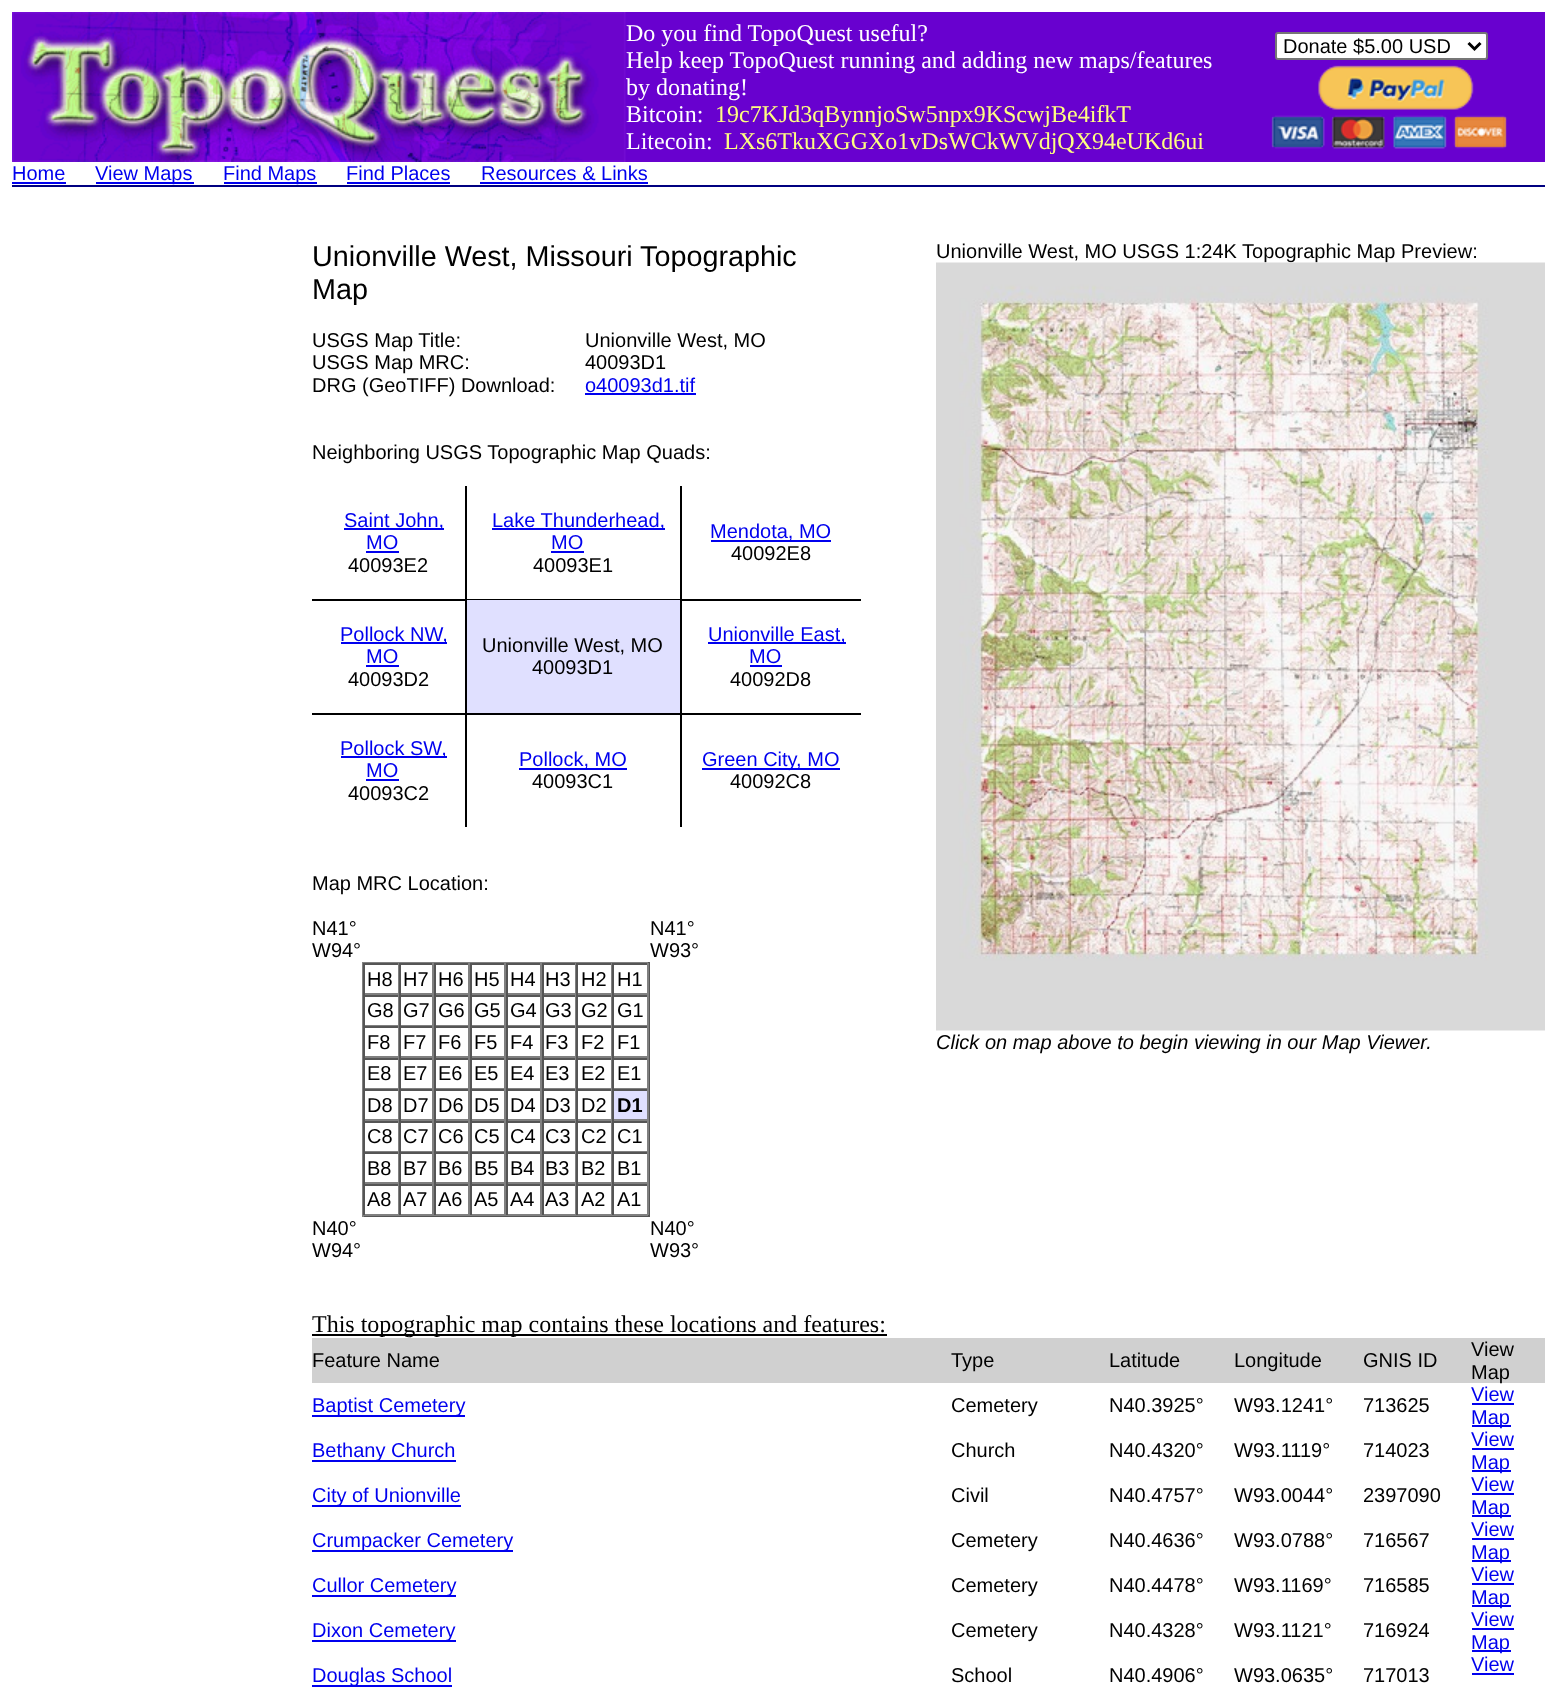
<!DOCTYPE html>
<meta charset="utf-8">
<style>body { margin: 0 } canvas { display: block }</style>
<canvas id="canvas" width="1556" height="1690"></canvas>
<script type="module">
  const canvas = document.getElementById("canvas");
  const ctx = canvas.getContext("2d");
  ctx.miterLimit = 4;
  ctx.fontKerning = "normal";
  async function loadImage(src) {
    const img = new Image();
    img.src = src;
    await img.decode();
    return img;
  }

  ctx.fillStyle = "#ffffff";
  ctx.fillRect(0, 0, 1556, 1690);
  ctx.fillStyle = "#6801cf";
  ctx.fillRect(625, 12, 920, 150);
  ctx.drawImage(await loadImage("img1.png"), 12, 12, 614, 150);
  ctx.font = "24px Liberation Serif";
  ctx.fillStyle = "#ffffff";
  ctx.fillText("Do you find TopoQuest useful?", 626, 41);
  ctx.fillText("Help keep TopoQuest running and adding new maps/features", 626, 68);
  ctx.fillText("by donating!", 626, 95);
  ctx.fillText("Bitcoin:", 626, 122);
  ctx.fillStyle = "#ffff80";
  ctx.fillText("19c7KJd3qBynnjoSw5npx9KScwjBe4ifkT", 715, 122);
  ctx.fillStyle = "#ffffff";
  ctx.fillText("Litecoin:", 626, 149);
  ctx.fillStyle = "#ffff80";
  ctx.fillText("LXs6TkuXGGXo1vDsWCkWVdjQX94eUKd6ui", 724, 149);
  ctx.fillStyle = "#ffffff";
  ctx.beginPath();
  ctx.roundRect(1276, 33, 211, 26, 2);
  ctx.fill();
  ctx.strokeStyle = "#767676";
  ctx.lineWidth = 2;
  ctx.stroke();
  ctx.beginPath();
  ctx.moveTo(1468.5, 43);
  ctx.lineTo(1474.5, 49);
  ctx.lineTo(1480.5, 43);
  ctx.strokeStyle = "#000000";
  ctx.lineWidth = 3;
  ctx.stroke();
  ctx.font = "20px Liberation Sans";
  ctx.fillStyle = "#000000";
  ctx.fillText("Donate $5.00 USD", 1283, 53);
  ctx.drawImage(await loadImage("img2.png"), 1271, 65, 236, 84);
  ctx.fillStyle = "#0000ee";
  ctx.fillText("Home", 12, 180);
  ctx.fillRect(12, 182, 54, 2);
  ctx.fillRect(96, 182, 98, 2);
  ctx.fillText("View Maps", 95, 180);
  ctx.fillRect(224, 182, 93, 2);
  ctx.fillText("Find Maps", 223, 180);
  ctx.fillText("Find Places", 346, 180);
  ctx.fillRect(347, 182, 103, 2);
  ctx.fillText("Resources & Links", 481, 180);
  ctx.fillRect(480, 182, 168, 2);
  ctx.fillStyle = "#000080";
  ctx.fillRect(12, 185, 1533, 2);
  ctx.font = "28.75px Liberation Sans";
  ctx.fillStyle = "#000000";
  ctx.fillText("Unionville West, Missouri Topographic", 312, 266);
  ctx.fillText("Map", 312, 299);
  ctx.font = "20px Liberation Sans";
  ctx.fillText("USGS Map Title:", 312, 347);
  ctx.fillText("Unionville West, MO", 585, 347);
  ctx.fillText("USGS Map MRC:", 312, 369);
  ctx.fillText("40093D1", 585, 369);
  ctx.fillText("DRG (GeoTIFF) Download:", 312, 392);
  ctx.fillStyle = "#0000ee";
  ctx.fillText("o40093d1.tif", 585, 392);
  ctx.fillRect(585, 393, 111, 2);
  ctx.fillStyle = "#000000";
  ctx.fillText("Neighboring USGS Topographic Map Quads:", 312, 459);
  ctx.fillStyle = "#0000ee";
  ctx.fillRect(344, 528, 100, 2);
  ctx.fillText("Saint John,", 344, 527);
  ctx.fillText("MO", 366, 549);
  ctx.fillRect(366, 551, 33, 2);
  ctx.fillStyle = "#000000";
  ctx.fillText("40093E2", 348, 572);
  ctx.fillRect(465, 486, 2, 341);
  ctx.fillStyle = "#0000ee";
  ctx.fillRect(492, 528, 173, 2);
  ctx.fillText("Lake Thunderhead,", 492, 527);
  ctx.fillText("MO", 551, 549);
  ctx.fillRect(551, 551, 33, 2);
  ctx.fillStyle = "#000000";
  ctx.fillText("40093E1", 533, 572);
  ctx.fillRect(680, 486, 2, 113);
  ctx.fillStyle = "#0000ee";
  ctx.fillRect(711, 540, 120, 2);
  ctx.fillText("Mendota, MO", 710, 538);
  ctx.fillStyle = "#000000";
  ctx.fillText("40092E8", 731, 560);
  ctx.fillRect(312, 599, 153, 2);
  ctx.fillRect(467, 599, 215, 1);
  ctx.fillRect(681, 599, 180, 2);
  ctx.fillStyle = "#0000ee";
  ctx.fillRect(341, 642, 106, 2);
  ctx.fillText("Pollock NW,", 340, 641);
  ctx.fillText("MO", 366, 663);
  ctx.fillRect(366, 665, 33, 2);
  ctx.fillStyle = "#000000";
  ctx.fillText("40093D2", 348, 686);
  ctx.fillStyle = "#e0e0ff";
  ctx.fillRect(467, 600, 213, 113);
  ctx.fillStyle = "#000000";
  ctx.fillText("Unionville West, MO", 482, 652);
  ctx.fillText("40093D1", 532, 674);
  ctx.fillRect(680, 600, 2, 114);
  ctx.fillStyle = "#0000ee";
  ctx.fillRect(708, 642, 138, 2);
  ctx.fillText("Unionville East,", 708, 641);
  ctx.fillText("MO", 749, 663);
  ctx.fillRect(750, 665, 32, 2);
  ctx.fillStyle = "#000000";
  ctx.fillText("40092D8", 730, 686);
  ctx.fillRect(312, 713, 153, 2);
  ctx.fillRect(467, 713, 213, 2);
  ctx.fillRect(681, 713, 180, 2);
  ctx.fillStyle = "#0000ee";
  ctx.fillRect(341, 756, 106, 2);
  ctx.fillText("Pollock SW,", 340, 755);
  ctx.fillText("MO", 366, 777);
  ctx.fillRect(366, 779, 33, 2);
  ctx.fillStyle = "#000000";
  ctx.fillText("40093C2", 348, 800);
  ctx.fillStyle = "#0000ee";
  ctx.fillRect(519, 768, 108, 2);
  ctx.fillText("Pollock, MO", 519, 766);
  ctx.fillStyle = "#000000";
  ctx.fillText("40093C1", 532, 788);
  ctx.fillRect(680, 714, 2, 113);
  ctx.fillStyle = "#0000ee";
  ctx.fillRect(702, 768, 138, 2);
  ctx.fillText("Green City, MO", 702, 766);
  ctx.fillStyle = "#000000";
  ctx.fillText("40092C8", 730, 788);
  ctx.fillText("Map MRC Location:", 312, 890);
  ctx.fillText("N41°", 312, 935);
  ctx.fillText("W94°", 312, 957);
  ctx.fillText("N41°", 650, 935);
  ctx.fillText("W93°", 650, 957);
  ctx.fillStyle = "#808080";
  ctx.fillRect(362, 962, 288, 1);
  ctx.fillStyle = "#555555";
  ctx.fillRect(648, 962, 2, 255);
  ctx.fillRect(362, 1215, 288, 2);
  ctx.fillStyle = "#808080";
  ctx.fillRect(362, 962, 2, 255);
  ctx.fillStyle = "#555555";
  ctx.fillRect(363, 963, 285, 2);
  ctx.fillStyle = "#808080";
  ctx.fillRect(398, 963, 1, 32);
  ctx.fillRect(363, 993, 36, 2);
  ctx.fillStyle = "#555555";
  ctx.fillRect(363, 963, 2, 32);
  ctx.fillStyle = "#000000";
  ctx.fillText("H8", 367, 986);
  ctx.fillStyle = "#808080";
  ctx.fillRect(432, 963, 2, 32);
  ctx.fillRect(399, 993, 35, 2);
  ctx.fillStyle = "#555555";
  ctx.fillRect(399, 963, 2, 32);
  ctx.fillStyle = "#000000";
  ctx.fillText("H7", 403, 986);
  ctx.fillStyle = "#808080";
  ctx.fillRect(468, 963, 2, 32);
  ctx.fillRect(434, 993, 36, 2);
  ctx.fillStyle = "#555555";
  ctx.fillRect(434, 963, 2, 32);
  ctx.fillStyle = "#000000";
  ctx.fillText("H6", 438, 986);
  ctx.fillStyle = "#808080";
  ctx.fillRect(504, 963, 2, 32);
  ctx.fillRect(470, 993, 36, 2);
  ctx.fillStyle = "#555555";
  ctx.fillRect(470, 963, 2, 32);
  ctx.fillStyle = "#000000";
  ctx.fillText("H5", 474, 986);
  ctx.fillStyle = "#808080";
  ctx.fillRect(540, 963, 2, 32);
  ctx.fillRect(506, 993, 36, 2);
  ctx.fillStyle = "#555555";
  ctx.fillRect(506, 963, 2, 32);
  ctx.fillStyle = "#000000";
  ctx.fillText("H4", 510, 986);
  ctx.fillStyle = "#808080";
  ctx.fillRect(575, 963, 1, 32);
  ctx.fillRect(542, 993, 34, 2);
  ctx.fillStyle = "#555555";
  ctx.fillRect(542, 963, 2, 32);
  ctx.fillStyle = "#000000";
  ctx.fillText("H3", 545, 986);
  ctx.fillStyle = "#808080";
  ctx.fillRect(611, 963, 1, 32);
  ctx.fillRect(576, 993, 36, 2);
  ctx.fillStyle = "#555555";
  ctx.fillRect(576, 963, 2, 32);
  ctx.fillStyle = "#000000";
  ctx.fillText("H2", 581, 986);
  ctx.fillStyle = "#808080";
  ctx.fillRect(647, 963, 2, 32);
  ctx.fillRect(612, 993, 36, 2);
  ctx.fillStyle = "#555555";
  ctx.fillRect(612, 963, 2, 32);
  ctx.fillStyle = "#000000";
  ctx.fillText("H1", 617, 986);
  ctx.fillStyle = "#555555";
  ctx.fillRect(363, 995, 285, 2);
  ctx.fillStyle = "#808080";
  ctx.fillRect(398, 995, 1, 31);
  ctx.fillRect(363, 1025, 36, 1);
  ctx.fillStyle = "#555555";
  ctx.fillRect(363, 995, 2, 31);
  ctx.fillStyle = "#000000";
  ctx.fillText("G8", 367, 1017);
  ctx.fillStyle = "#808080";
  ctx.fillRect(432, 995, 2, 31);
  ctx.fillRect(399, 1025, 35, 1);
  ctx.fillStyle = "#555555";
  ctx.fillRect(399, 995, 2, 31);
  ctx.fillStyle = "#000000";
  ctx.fillText("G7", 403, 1017);
  ctx.fillStyle = "#808080";
  ctx.fillRect(468, 995, 2, 31);
  ctx.fillRect(434, 1025, 36, 1);
  ctx.fillStyle = "#555555";
  ctx.fillRect(434, 995, 2, 31);
  ctx.fillStyle = "#000000";
  ctx.fillText("G6", 438, 1017);
  ctx.fillStyle = "#808080";
  ctx.fillRect(504, 995, 2, 31);
  ctx.fillRect(470, 1025, 36, 1);
  ctx.fillStyle = "#555555";
  ctx.fillRect(470, 995, 2, 31);
  ctx.fillStyle = "#000000";
  ctx.fillText("G5", 474, 1017);
  ctx.fillStyle = "#808080";
  ctx.fillRect(540, 995, 2, 31);
  ctx.fillRect(506, 1025, 36, 1);
  ctx.fillStyle = "#555555";
  ctx.fillRect(506, 995, 2, 31);
  ctx.fillStyle = "#000000";
  ctx.fillText("G4", 510, 1017);
  ctx.fillStyle = "#808080";
  ctx.fillRect(575, 995, 1, 31);
  ctx.fillRect(542, 1025, 34, 1);
  ctx.fillStyle = "#555555";
  ctx.fillRect(542, 995, 2, 31);
  ctx.fillStyle = "#000000";
  ctx.fillText("G3", 545, 1017);
  ctx.fillStyle = "#808080";
  ctx.fillRect(611, 995, 1, 31);
  ctx.fillRect(576, 1025, 36, 1);
  ctx.fillStyle = "#555555";
  ctx.fillRect(576, 995, 2, 31);
  ctx.fillStyle = "#000000";
  ctx.fillText("G2", 581, 1017);
  ctx.fillStyle = "#808080";
  ctx.fillRect(647, 995, 2, 31);
  ctx.fillRect(612, 1025, 36, 1);
  ctx.fillStyle = "#555555";
  ctx.fillRect(612, 995, 2, 31);
  ctx.fillStyle = "#000000";
  ctx.fillText("G1", 617, 1017);
  ctx.fillStyle = "#555555";
  ctx.fillRect(363, 1026, 285, 2);
  ctx.fillStyle = "#808080";
  ctx.fillRect(398, 1026, 1, 32);
  ctx.fillRect(363, 1056, 36, 2);
  ctx.fillStyle = "#555555";
  ctx.fillRect(363, 1026, 2, 32);
  ctx.fillStyle = "#000000";
  ctx.fillText("F8", 367, 1049);
  ctx.fillStyle = "#808080";
  ctx.fillRect(432, 1026, 2, 32);
  ctx.fillRect(399, 1056, 35, 2);
  ctx.fillStyle = "#555555";
  ctx.fillRect(399, 1026, 2, 32);
  ctx.fillStyle = "#000000";
  ctx.fillText("F7", 403, 1049);
  ctx.fillStyle = "#808080";
  ctx.fillRect(468, 1026, 2, 32);
  ctx.fillRect(434, 1056, 36, 2);
  ctx.fillStyle = "#555555";
  ctx.fillRect(434, 1026, 2, 32);
  ctx.fillStyle = "#000000";
  ctx.fillText("F6", 438, 1049);
  ctx.fillStyle = "#808080";
  ctx.fillRect(504, 1026, 2, 32);
  ctx.fillRect(470, 1056, 36, 2);
  ctx.fillStyle = "#555555";
  ctx.fillRect(470, 1026, 2, 32);
  ctx.fillStyle = "#000000";
  ctx.fillText("F5", 474, 1049);
  ctx.fillStyle = "#808080";
  ctx.fillRect(540, 1026, 2, 32);
  ctx.fillRect(506, 1056, 36, 2);
  ctx.fillStyle = "#555555";
  ctx.fillRect(506, 1026, 2, 32);
  ctx.fillStyle = "#000000";
  ctx.fillText("F4", 510, 1049);
  ctx.fillStyle = "#808080";
  ctx.fillRect(575, 1026, 1, 32);
  ctx.fillRect(542, 1056, 34, 2);
  ctx.fillStyle = "#555555";
  ctx.fillRect(542, 1026, 2, 32);
  ctx.fillStyle = "#000000";
  ctx.fillText("F3", 545, 1049);
  ctx.fillStyle = "#808080";
  ctx.fillRect(611, 1026, 1, 32);
  ctx.fillRect(576, 1056, 36, 2);
  ctx.fillStyle = "#555555";
  ctx.fillRect(576, 1026, 2, 32);
  ctx.fillStyle = "#000000";
  ctx.fillText("F2", 581, 1049);
  ctx.fillStyle = "#808080";
  ctx.fillRect(647, 1026, 2, 32);
  ctx.fillRect(612, 1056, 36, 2);
  ctx.fillStyle = "#555555";
  ctx.fillRect(612, 1026, 2, 32);
  ctx.fillStyle = "#000000";
  ctx.fillText("F1", 617, 1049);
  ctx.fillStyle = "#555555";
  ctx.fillRect(363, 1058, 285, 2);
  ctx.fillStyle = "#808080";
  ctx.fillRect(398, 1058, 1, 31);
  ctx.fillRect(363, 1088, 36, 1);
  ctx.fillStyle = "#555555";
  ctx.fillRect(363, 1058, 2, 31);
  ctx.fillStyle = "#000000";
  ctx.fillText("E8", 367, 1080);
  ctx.fillStyle = "#808080";
  ctx.fillRect(432, 1058, 2, 31);
  ctx.fillRect(399, 1088, 35, 1);
  ctx.fillStyle = "#555555";
  ctx.fillRect(399, 1058, 2, 31);
  ctx.fillStyle = "#000000";
  ctx.fillText("E7", 403, 1080);
  ctx.fillStyle = "#808080";
  ctx.fillRect(468, 1058, 2, 31);
  ctx.fillRect(434, 1088, 36, 1);
  ctx.fillStyle = "#555555";
  ctx.fillRect(434, 1058, 2, 31);
  ctx.fillStyle = "#000000";
  ctx.fillText("E6", 438, 1080);
  ctx.fillStyle = "#808080";
  ctx.fillRect(504, 1058, 2, 31);
  ctx.fillRect(470, 1088, 36, 1);
  ctx.fillStyle = "#555555";
  ctx.fillRect(470, 1058, 2, 31);
  ctx.fillStyle = "#000000";
  ctx.fillText("E5", 474, 1080);
  ctx.fillStyle = "#808080";
  ctx.fillRect(540, 1058, 2, 31);
  ctx.fillRect(506, 1088, 36, 1);
  ctx.fillStyle = "#555555";
  ctx.fillRect(506, 1058, 2, 31);
  ctx.fillStyle = "#000000";
  ctx.fillText("E4", 510, 1080);
  ctx.fillStyle = "#808080";
  ctx.fillRect(575, 1058, 1, 31);
  ctx.fillRect(542, 1088, 34, 1);
  ctx.fillStyle = "#555555";
  ctx.fillRect(542, 1058, 2, 31);
  ctx.fillStyle = "#000000";
  ctx.fillText("E3", 545, 1080);
  ctx.fillStyle = "#808080";
  ctx.fillRect(611, 1058, 1, 31);
  ctx.fillRect(576, 1088, 36, 1);
  ctx.fillStyle = "#555555";
  ctx.fillRect(576, 1058, 2, 31);
  ctx.fillStyle = "#000000";
  ctx.fillText("E2", 581, 1080);
  ctx.fillStyle = "#808080";
  ctx.fillRect(647, 1058, 2, 31);
  ctx.fillRect(612, 1088, 36, 1);
  ctx.fillStyle = "#555555";
  ctx.fillRect(612, 1058, 2, 31);
  ctx.fillStyle = "#000000";
  ctx.fillText("E1", 617, 1080);
  ctx.fillStyle = "#555555";
  ctx.fillRect(363, 1089, 285, 2);
  ctx.fillStyle = "#808080";
  ctx.fillRect(398, 1089, 1, 32);
  ctx.fillRect(363, 1119, 36, 2);
  ctx.fillStyle = "#555555";
  ctx.fillRect(363, 1089, 2, 32);
  ctx.fillStyle = "#000000";
  ctx.fillText("D8", 367, 1112);
  ctx.fillStyle = "#808080";
  ctx.fillRect(432, 1089, 2, 32);
  ctx.fillRect(399, 1119, 35, 2);
  ctx.fillStyle = "#555555";
  ctx.fillRect(399, 1089, 2, 32);
  ctx.fillStyle = "#000000";
  ctx.fillText("D7", 403, 1112);
  ctx.fillStyle = "#808080";
  ctx.fillRect(468, 1089, 2, 32);
  ctx.fillRect(434, 1119, 36, 2);
  ctx.fillStyle = "#555555";
  ctx.fillRect(434, 1089, 2, 32);
  ctx.fillStyle = "#000000";
  ctx.fillText("D6", 438, 1112);
  ctx.fillStyle = "#808080";
  ctx.fillRect(504, 1089, 2, 32);
  ctx.fillRect(470, 1119, 36, 2);
  ctx.fillStyle = "#555555";
  ctx.fillRect(470, 1089, 2, 32);
  ctx.fillStyle = "#000000";
  ctx.fillText("D5", 474, 1112);
  ctx.fillStyle = "#808080";
  ctx.fillRect(540, 1089, 2, 32);
  ctx.fillRect(506, 1119, 36, 2);
  ctx.fillStyle = "#555555";
  ctx.fillRect(506, 1089, 2, 32);
  ctx.fillStyle = "#000000";
  ctx.fillText("D4", 510, 1112);
  ctx.fillStyle = "#808080";
  ctx.fillRect(575, 1089, 1, 32);
  ctx.fillRect(542, 1119, 34, 2);
  ctx.fillStyle = "#555555";
  ctx.fillRect(542, 1089, 2, 32);
  ctx.fillStyle = "#000000";
  ctx.fillText("D3", 545, 1112);
  ctx.fillStyle = "#808080";
  ctx.fillRect(611, 1089, 1, 32);
  ctx.fillRect(576, 1119, 36, 2);
  ctx.fillStyle = "#555555";
  ctx.fillRect(576, 1089, 2, 32);
  ctx.fillStyle = "#000000";
  ctx.fillText("D2", 581, 1112);
  ctx.fillStyle = "#e0e0ff";
  ctx.fillRect(614, 1091, 33, 28);
  ctx.fillStyle = "#808080";
  ctx.fillRect(647, 1089, 2, 32);
  ctx.fillRect(612, 1119, 36, 2);
  ctx.fillStyle = "#555555";
  ctx.fillRect(612, 1089, 2, 32);
  ctx.font = "bold 20px Liberation Sans";
  ctx.fillStyle = "#000000";
  ctx.fillText("D1", 617, 1112);
  ctx.fillStyle = "#555555";
  ctx.fillRect(363, 1121, 285, 2);
  ctx.fillStyle = "#808080";
  ctx.fillRect(398, 1121, 1, 31);
  ctx.fillRect(363, 1151, 36, 1);
  ctx.fillStyle = "#555555";
  ctx.fillRect(363, 1121, 2, 31);
  ctx.font = "20px Liberation Sans";
  ctx.fillStyle = "#000000";
  ctx.fillText("C8", 367, 1143);
  ctx.fillStyle = "#808080";
  ctx.fillRect(432, 1121, 2, 31);
  ctx.fillRect(399, 1151, 35, 1);
  ctx.fillStyle = "#555555";
  ctx.fillRect(399, 1121, 2, 31);
  ctx.fillStyle = "#000000";
  ctx.fillText("C7", 403, 1143);
  ctx.fillStyle = "#808080";
  ctx.fillRect(468, 1121, 2, 31);
  ctx.fillRect(434, 1151, 36, 1);
  ctx.fillStyle = "#555555";
  ctx.fillRect(434, 1121, 2, 31);
  ctx.fillStyle = "#000000";
  ctx.fillText("C6", 438, 1143);
  ctx.fillStyle = "#808080";
  ctx.fillRect(504, 1121, 2, 31);
  ctx.fillRect(470, 1151, 36, 1);
  ctx.fillStyle = "#555555";
  ctx.fillRect(470, 1121, 2, 31);
  ctx.fillStyle = "#000000";
  ctx.fillText("C5", 474, 1143);
  ctx.fillStyle = "#808080";
  ctx.fillRect(540, 1121, 2, 31);
  ctx.fillRect(506, 1151, 36, 1);
  ctx.fillStyle = "#555555";
  ctx.fillRect(506, 1121, 2, 31);
  ctx.fillStyle = "#000000";
  ctx.fillText("C4", 510, 1143);
  ctx.fillStyle = "#808080";
  ctx.fillRect(575, 1121, 1, 31);
  ctx.fillRect(542, 1151, 34, 1);
  ctx.fillStyle = "#555555";
  ctx.fillRect(542, 1121, 2, 31);
  ctx.fillStyle = "#000000";
  ctx.fillText("C3", 545, 1143);
  ctx.fillStyle = "#808080";
  ctx.fillRect(611, 1121, 1, 31);
  ctx.fillRect(576, 1151, 36, 1);
  ctx.fillStyle = "#555555";
  ctx.fillRect(576, 1121, 2, 31);
  ctx.fillStyle = "#000000";
  ctx.fillText("C2", 581, 1143);
  ctx.fillStyle = "#808080";
  ctx.fillRect(647, 1121, 2, 31);
  ctx.fillRect(612, 1151, 36, 1);
  ctx.fillStyle = "#555555";
  ctx.fillRect(612, 1121, 2, 31);
  ctx.fillStyle = "#000000";
  ctx.fillText("C1", 617, 1143);
  ctx.fillStyle = "#555555";
  ctx.fillRect(363, 1152, 285, 2);
  ctx.fillStyle = "#808080";
  ctx.fillRect(398, 1152, 1, 32);
  ctx.fillRect(363, 1182, 36, 2);
  ctx.fillStyle = "#555555";
  ctx.fillRect(363, 1152, 2, 32);
  ctx.fillStyle = "#000000";
  ctx.fillText("B8", 367, 1175);
  ctx.fillStyle = "#808080";
  ctx.fillRect(432, 1152, 2, 32);
  ctx.fillRect(399, 1182, 35, 2);
  ctx.fillStyle = "#555555";
  ctx.fillRect(399, 1152, 2, 32);
  ctx.fillStyle = "#000000";
  ctx.fillText("B7", 403, 1175);
  ctx.fillStyle = "#808080";
  ctx.fillRect(468, 1152, 2, 32);
  ctx.fillRect(434, 1182, 36, 2);
  ctx.fillStyle = "#555555";
  ctx.fillRect(434, 1152, 2, 32);
  ctx.fillStyle = "#000000";
  ctx.fillText("B6", 438, 1175);
  ctx.fillStyle = "#808080";
  ctx.fillRect(504, 1152, 2, 32);
  ctx.fillRect(470, 1182, 36, 2);
  ctx.fillStyle = "#555555";
  ctx.fillRect(470, 1152, 2, 32);
  ctx.fillStyle = "#000000";
  ctx.fillText("B5", 474, 1175);
  ctx.fillStyle = "#808080";
  ctx.fillRect(540, 1152, 2, 32);
  ctx.fillRect(506, 1182, 36, 2);
  ctx.fillStyle = "#555555";
  ctx.fillRect(506, 1152, 2, 32);
  ctx.fillStyle = "#000000";
  ctx.fillText("B4", 510, 1175);
  ctx.fillStyle = "#808080";
  ctx.fillRect(575, 1152, 1, 32);
  ctx.fillRect(542, 1182, 34, 2);
  ctx.fillStyle = "#555555";
  ctx.fillRect(542, 1152, 2, 32);
  ctx.fillStyle = "#000000";
  ctx.fillText("B3", 545, 1175);
  ctx.fillStyle = "#808080";
  ctx.fillRect(611, 1152, 1, 32);
  ctx.fillRect(576, 1182, 36, 2);
  ctx.fillStyle = "#555555";
  ctx.fillRect(576, 1152, 2, 32);
  ctx.fillStyle = "#000000";
  ctx.fillText("B2", 581, 1175);
  ctx.fillStyle = "#808080";
  ctx.fillRect(647, 1152, 2, 32);
  ctx.fillRect(612, 1182, 36, 2);
  ctx.fillStyle = "#555555";
  ctx.fillRect(612, 1152, 2, 32);
  ctx.fillStyle = "#000000";
  ctx.fillText("B1", 617, 1175);
  ctx.fillStyle = "#555555";
  ctx.fillRect(363, 1184, 285, 2);
  ctx.fillStyle = "#808080";
  ctx.fillRect(398, 1184, 1, 31);
  ctx.fillRect(363, 1214, 36, 2);
  ctx.fillStyle = "#555555";
  ctx.fillRect(363, 1184, 2, 31);
  ctx.fillStyle = "#000000";
  ctx.fillText("A8", 367, 1206);
  ctx.fillStyle = "#808080";
  ctx.fillRect(432, 1184, 2, 31);
  ctx.fillRect(399, 1214, 35, 2);
  ctx.fillStyle = "#555555";
  ctx.fillRect(399, 1184, 2, 31);
  ctx.fillStyle = "#000000";
  ctx.fillText("A7", 403, 1206);
  ctx.fillStyle = "#808080";
  ctx.fillRect(468, 1184, 2, 31);
  ctx.fillRect(434, 1214, 36, 2);
  ctx.fillStyle = "#555555";
  ctx.fillRect(434, 1184, 2, 31);
  ctx.fillStyle = "#000000";
  ctx.fillText("A6", 438, 1206);
  ctx.fillStyle = "#808080";
  ctx.fillRect(504, 1184, 2, 31);
  ctx.fillRect(470, 1214, 36, 2);
  ctx.fillStyle = "#555555";
  ctx.fillRect(470, 1184, 2, 31);
  ctx.fillStyle = "#000000";
  ctx.fillText("A5", 474, 1206);
  ctx.fillStyle = "#808080";
  ctx.fillRect(540, 1184, 2, 31);
  ctx.fillRect(506, 1214, 36, 2);
  ctx.fillStyle = "#555555";
  ctx.fillRect(506, 1184, 2, 31);
  ctx.fillStyle = "#000000";
  ctx.fillText("A4", 510, 1206);
  ctx.fillStyle = "#808080";
  ctx.fillRect(575, 1184, 1, 31);
  ctx.fillRect(542, 1214, 34, 2);
  ctx.fillStyle = "#555555";
  ctx.fillRect(542, 1184, 2, 31);
  ctx.fillStyle = "#000000";
  ctx.fillText("A3", 545, 1206);
  ctx.fillStyle = "#808080";
  ctx.fillRect(611, 1184, 1, 31);
  ctx.fillRect(576, 1214, 36, 2);
  ctx.fillStyle = "#555555";
  ctx.fillRect(576, 1184, 2, 31);
  ctx.fillStyle = "#000000";
  ctx.fillText("A2", 581, 1206);
  ctx.fillStyle = "#808080";
  ctx.fillRect(647, 1184, 2, 31);
  ctx.fillRect(612, 1214, 36, 2);
  ctx.fillStyle = "#555555";
  ctx.fillRect(612, 1184, 2, 31);
  ctx.fillStyle = "#000000";
  ctx.fillText("A1", 617, 1206);
  ctx.fillText("N40°", 312, 1235);
  ctx.fillText("W94°", 312, 1257);
  ctx.fillText("N40°", 650, 1235);
  ctx.fillText("W93°", 650, 1257);
  ctx.fillText("Unionville West, MO USGS 1:24K Topographic Map Preview:", 936, 258);
  ctx.drawImage(await loadImage("img3.png"), 936, 262, 609, 769);
  ctx.font = "italic 20px Liberation Sans";
  ctx.fillText("Click on map above to begin viewing in our Map Viewer.", 936, 1049);
  ctx.fillRect(312, 1334, 575, 2);
  ctx.font = "24px Liberation Serif";
  ctx.fillText("This topographic map contains these locations and features:", 312, 1332);
  ctx.fillStyle = "#d0d0d0";
  ctx.fillRect(312, 1338, 1233, 45);
  ctx.font = "20px Liberation Sans";
  ctx.fillStyle = "#000000";
  ctx.fillText("Feature Name", 312, 1367);
  ctx.fillText("Type", 951, 1367);
  ctx.fillText("Latitude", 1109, 1367);
  ctx.fillText("Longitude", 1234, 1367);
  ctx.fillText("GNIS ID", 1363, 1367);
  ctx.fillText("View", 1471, 1356);
  ctx.fillText("Map", 1471, 1379);
  ctx.fillStyle = "#0000ee";
  ctx.fillRect(312, 1415, 153, 2);
  ctx.fillText("Baptist Cemetery", 312, 1412);
  ctx.fillStyle = "#000000";
  ctx.fillText("Cemetery", 951, 1412);
  ctx.fillText("N40.3925°", 1109, 1412);
  ctx.fillText("W93.1241°", 1234, 1412);
  ctx.fillText("713625", 1363, 1412);
  ctx.fillStyle = "#0000ee";
  ctx.fillText("View", 1471, 1401);
  ctx.fillRect(1472, 1403, 42, 2);
  ctx.fillRect(1472, 1425, 39, 2);
  ctx.fillText("Map", 1471, 1424);
  ctx.fillRect(312, 1460, 144, 2);
  ctx.fillText("Bethany Church", 312, 1457);
  ctx.fillStyle = "#000000";
  ctx.fillText("Church", 951, 1457);
  ctx.fillText("N40.4320°", 1109, 1457);
  ctx.fillText("W93.1119°", 1234, 1457);
  ctx.fillText("714023", 1363, 1457);
  ctx.fillStyle = "#0000ee";
  ctx.fillText("View", 1471, 1446);
  ctx.fillRect(1472, 1448, 42, 2);
  ctx.fillRect(1472, 1470, 39, 2);
  ctx.fillText("Map", 1471, 1469);
  ctx.fillRect(312, 1505, 149, 2);
  ctx.fillText("City of Unionville", 312, 1502);
  ctx.fillStyle = "#000000";
  ctx.fillText("Civil", 951, 1502);
  ctx.fillText("N40.4757°", 1109, 1502);
  ctx.fillText("W93.0044°", 1234, 1502);
  ctx.fillText("2397090", 1363, 1502);
  ctx.fillStyle = "#0000ee";
  ctx.fillText("View", 1471, 1491);
  ctx.fillRect(1472, 1493, 42, 2);
  ctx.fillRect(1472, 1515, 39, 2);
  ctx.fillText("Map", 1471, 1514);
  ctx.fillRect(312, 1550, 201, 2);
  ctx.fillText("Crumpacker Cemetery", 312, 1547);
  ctx.fillStyle = "#000000";
  ctx.fillText("Cemetery", 951, 1547);
  ctx.fillText("N40.4636°", 1109, 1547);
  ctx.fillText("W93.0788°", 1234, 1547);
  ctx.fillText("716567", 1363, 1547);
  ctx.fillStyle = "#0000ee";
  ctx.fillText("View", 1471, 1536);
  ctx.fillRect(1472, 1538, 42, 2);
  ctx.fillRect(1472, 1560, 39, 2);
  ctx.fillText("Map", 1471, 1559);
  ctx.fillRect(312, 1595, 144, 2);
  ctx.fillText("Cullor Cemetery", 312, 1592);
  ctx.fillStyle = "#000000";
  ctx.fillText("Cemetery", 951, 1592);
  ctx.fillText("N40.4478°", 1109, 1592);
  ctx.fillText("W93.1169°", 1234, 1592);
  ctx.fillText("716585", 1363, 1592);
  ctx.fillStyle = "#0000ee";
  ctx.fillText("View", 1471, 1581);
  ctx.fillRect(1472, 1583, 42, 2);
  ctx.fillRect(1472, 1605, 39, 2);
  ctx.fillText("Map", 1471, 1604);
  ctx.fillRect(312, 1640, 144, 2);
  ctx.fillText("Dixon Cemetery", 312, 1637);
  ctx.fillStyle = "#000000";
  ctx.fillText("Cemetery", 951, 1637);
  ctx.fillText("N40.4328°", 1109, 1637);
  ctx.fillText("W93.1121°", 1234, 1637);
  ctx.fillText("716924", 1363, 1637);
  ctx.fillStyle = "#0000ee";
  ctx.fillText("View", 1471, 1626);
  ctx.fillRect(1472, 1628, 42, 2);
  ctx.fillRect(1472, 1650, 39, 2);
  ctx.fillText("Map", 1471, 1649);
  ctx.fillText("View", 1471, 1671);
  ctx.fillRect(1472, 1673, 42, 2);
  ctx.fillRect(312, 1685, 140, 2);
  ctx.fillText("Douglas School", 312, 1682);
  ctx.fillStyle = "#000000";
  ctx.fillText("School", 951, 1682);
  ctx.fillText("N40.4906°", 1109, 1682);
  ctx.fillText("W93.0635°", 1234, 1682);
  ctx.fillText("717013", 1363, 1682);
</script>
